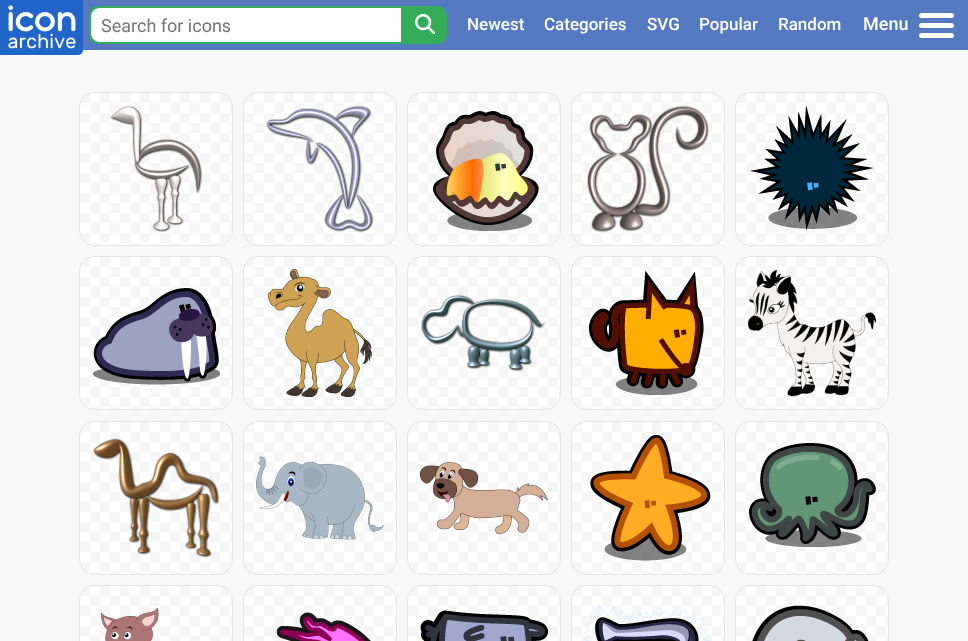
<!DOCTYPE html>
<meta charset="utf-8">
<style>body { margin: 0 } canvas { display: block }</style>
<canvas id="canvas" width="968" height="641"></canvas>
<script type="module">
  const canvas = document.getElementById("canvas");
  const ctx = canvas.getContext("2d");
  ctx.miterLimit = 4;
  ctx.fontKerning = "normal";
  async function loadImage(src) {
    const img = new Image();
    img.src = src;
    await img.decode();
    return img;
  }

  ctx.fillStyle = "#f8f8f8";
  ctx.fillRect(0, 0, 968, 641);
  ctx.fillStyle = "#5479c1";
  ctx.fillRect(83, 0, 885, 50);
  ctx.drawImage(await loadImage("img1.png"), 0, 0, 83, 55);
  ctx.fillStyle = "#ffffff";
  ctx.beginPath();
  ctx.roundRect(91, 8, 310, 34, [8, 0, 0, 8]);
  ctx.fill();
  ctx.fillStyle = "#34ad59";
  ctx.beginPath();
  ctx.moveTo(99, 6);
  ctx.lineTo(401, 6);
  ctx.lineTo(401, 44);
  ctx.lineTo(99, 44);
  ctx.bezierCurveTo(93, 44, 89, 40, 89, 34);
  ctx.lineTo(89, 16);
  ctx.bezierCurveTo(89, 10, 93, 6, 99, 6);
  ctx.closePath();
  ctx.moveTo(99, 8);
  ctx.lineTo(401, 8);
  ctx.lineTo(401, 42);
  ctx.lineTo(99, 42);
  ctx.bezierCurveTo(95, 42, 91, 38, 91, 34);
  ctx.lineTo(91, 16);
  ctx.bezierCurveTo(91, 12, 95, 8, 99, 8);
  ctx.closePath();
  ctx.fill("evenodd");
  ctx.font = "18px Roboto";
  ctx.fillStyle = "#757575";
  ctx.fillText("Search for icons", 101, 32);
  ctx.fillStyle = "#34ad59";
  ctx.beginPath();
  ctx.roundRect(401, 8, 44, 34, [0, 8, 8, 0]);
  ctx.fill();
  ctx.beginPath();
  ctx.moveTo(401, 6);
  ctx.lineTo(437, 6);
  ctx.bezierCurveTo(443, 6, 447, 10, 447, 16);
  ctx.lineTo(447, 34);
  ctx.bezierCurveTo(447, 40, 443, 44, 437, 44);
  ctx.lineTo(401, 44);
  ctx.closePath();
  ctx.moveTo(401, 8);
  ctx.lineTo(431, 8);
  ctx.bezierCurveTo(446, 8, 445, 11, 445, 25);
  ctx.bezierCurveTo(445, 39, 446, 42, 431, 42);
  ctx.lineTo(401, 42);
  ctx.closePath();
  ctx.fill("evenodd");
  ctx.drawImage(await loadImage("img2.png"), 415, 14, 20, 20);
  ctx.font = "500 17px Roboto";
  ctx.fillStyle = "#ffffff";
  ctx.fillText("Newest", 467, 30);
  ctx.fillText("Categories", 544, 30);
  ctx.fillText("SVG", 647, 30);
  ctx.fillText("Popular", 699, 30);
  ctx.fillText("Random", 778, 30);
  ctx.font = "500 18px Roboto";
  ctx.fillText("Menu", 863, 30);
  ctx.beginPath();
  ctx.roundRect(919, 13, 35, 5, 2.5);
  ctx.fill();
  ctx.beginPath();
  ctx.roundRect(919, 23, 35, 5, 2.5);
  ctx.fill();
  ctx.beginPath();
  ctx.roundRect(919, 33, 35, 5, 2.5);
  ctx.fill();
  ctx.drawImage(await loadImage("img3.png"), 79, 92, 154, 154);
  ctx.beginPath();
  ctx.roundRect(79.5, 92.5, 153, 153, 14.5);
  ctx.strokeStyle = "#e5e5e5";
  ctx.stroke();
  ctx.drawImage(await loadImage("img4.png"), 110, 106, 93, 126);
  ctx.drawImage(await loadImage("img5.png"), 243, 92, 154, 154);
  ctx.beginPath();
  ctx.roundRect(243.5, 92.5, 153, 153, 14.5);
  ctx.stroke();
  ctx.drawImage(await loadImage("img6.png"), 266, 105, 108, 128);
  ctx.drawImage(await loadImage("img3.png"), 407, 92, 154, 154);
  ctx.beginPath();
  ctx.roundRect(407.5, 92.5, 153, 153, 14.5);
  ctx.stroke();
  ctx.drawImage(await loadImage("img7.png"), 433, 111, 106, 120);
  ctx.drawImage(await loadImage("img3.png"), 571, 92, 154, 154);
  ctx.beginPath();
  ctx.roundRect(571.5, 92.5, 153, 153, 14.5);
  ctx.stroke();
  ctx.drawImage(await loadImage("img8.png"), 587, 105, 122, 128);
  ctx.drawImage(await loadImage("img3.png"), 735, 92, 154, 154);
  ctx.beginPath();
  ctx.roundRect(735.5, 92.5, 153, 153, 14.5);
  ctx.stroke();
  ctx.drawImage(await loadImage("img9.png"), 750, 105, 123, 125);
  ctx.drawImage(await loadImage("img3.png"), 79, 256, 154, 154);
  ctx.beginPath();
  ctx.roundRect(79.5, 256.5, 153, 153, 14.5);
  ctx.stroke();
  ctx.drawImage(await loadImage("img10.png"), 93, 288, 127, 97);
  ctx.drawImage(await loadImage("img5.png"), 243, 256, 154, 154);
  ctx.beginPath();
  ctx.roundRect(243.5, 256.5, 153, 153, 14.5);
  ctx.stroke();
  ctx.drawImage(await loadImage("img11.png"), 267, 269, 105, 128);
  ctx.drawImage(await loadImage("img3.png"), 407, 256, 154, 154);
  ctx.beginPath();
  ctx.roundRect(407.5, 256.5, 153, 153, 14.5);
  ctx.stroke();
  ctx.drawImage(await loadImage("img12.png"), 420, 294, 126, 78);
  ctx.drawImage(await loadImage("img3.png"), 571, 256, 154, 154);
  ctx.beginPath();
  ctx.roundRect(571.5, 256.5, 153, 153, 14.5);
  ctx.stroke();
  ctx.drawImage(await loadImage("img13.png"), 589, 271, 115, 124);
  ctx.drawImage(await loadImage("img3.png"), 735, 256, 154, 154);
  ctx.beginPath();
  ctx.roundRect(735.5, 256.5, 153, 153, 14.5);
  ctx.stroke();
  ctx.drawImage(await loadImage("img14.png"), 748, 269, 128, 128);
  ctx.drawImage(await loadImage("img3.png"), 79, 421, 154, 154);
  ctx.beginPath();
  ctx.roundRect(79.5, 421.5, 153, 153, 14.5);
  ctx.stroke();
  ctx.drawImage(await loadImage("img15.png"), 93, 438, 127, 120);
  ctx.drawImage(await loadImage("img5.png"), 243, 421, 154, 154);
  ctx.beginPath();
  ctx.roundRect(243.5, 421.5, 153, 153, 14.5);
  ctx.stroke();
  ctx.drawImage(await loadImage("img16.png"), 256, 456, 128, 84);
  ctx.drawImage(await loadImage("img3.png"), 407, 421, 154, 154);
  ctx.beginPath();
  ctx.roundRect(407.5, 421.5, 153, 153, 14.5);
  ctx.stroke();
  ctx.drawImage(await loadImage("img17.png"), 420, 462, 128, 73);
  ctx.drawImage(await loadImage("img3.png"), 571, 421, 154, 154);
  ctx.beginPath();
  ctx.roundRect(571.5, 421.5, 153, 153, 14.5);
  ctx.stroke();
  ctx.drawImage(await loadImage("img18.png"), 590, 435, 121, 126);
  ctx.drawImage(await loadImage("img3.png"), 735, 421, 154, 154);
  ctx.beginPath();
  ctx.roundRect(735.5, 421.5, 153, 153, 14.5);
  ctx.stroke();
  ctx.drawImage(await loadImage("img19.png"), 749, 443, 127, 104);
  ctx.drawImage(await loadImage("img20.png"), 79, 585, 154, 56);
  ctx.beginPath();
  ctx.roundRect(79.5, 585.5, 153, 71, 14.5);
  ctx.stroke();
  ctx.drawImage(await loadImage("img21.png"), 101, 607, 58, 34);
  ctx.drawImage(await loadImage("img22.png"), 243, 585, 154, 56);
  ctx.beginPath();
  ctx.roundRect(243.5, 585.5, 153, 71, 14.5);
  ctx.stroke();
  ctx.drawImage(await loadImage("img23.png"), 276, 612, 95, 29);
  ctx.drawImage(await loadImage("img20.png"), 407, 585, 154, 56);
  ctx.beginPath();
  ctx.roundRect(407.5, 585.5, 153, 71, 14.5);
  ctx.stroke();
  ctx.drawImage(await loadImage("img24.png"), 420, 610, 128, 31);
  ctx.drawImage(await loadImage("img20.png"), 571, 585, 154, 56);
  ctx.beginPath();
  ctx.roundRect(571.5, 585.5, 153, 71, 14.5);
  ctx.stroke();
  ctx.drawImage(await loadImage("img25.png"), 584, 603, 128, 38);
  ctx.drawImage(await loadImage("img20.png"), 735, 585, 154, 56);
  ctx.beginPath();
  ctx.roundRect(735.5, 585.5, 153, 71, 14.5);
  ctx.stroke();
  ctx.drawImage(await loadImage("img26.png"), 752, 605, 117, 36);
</script>
